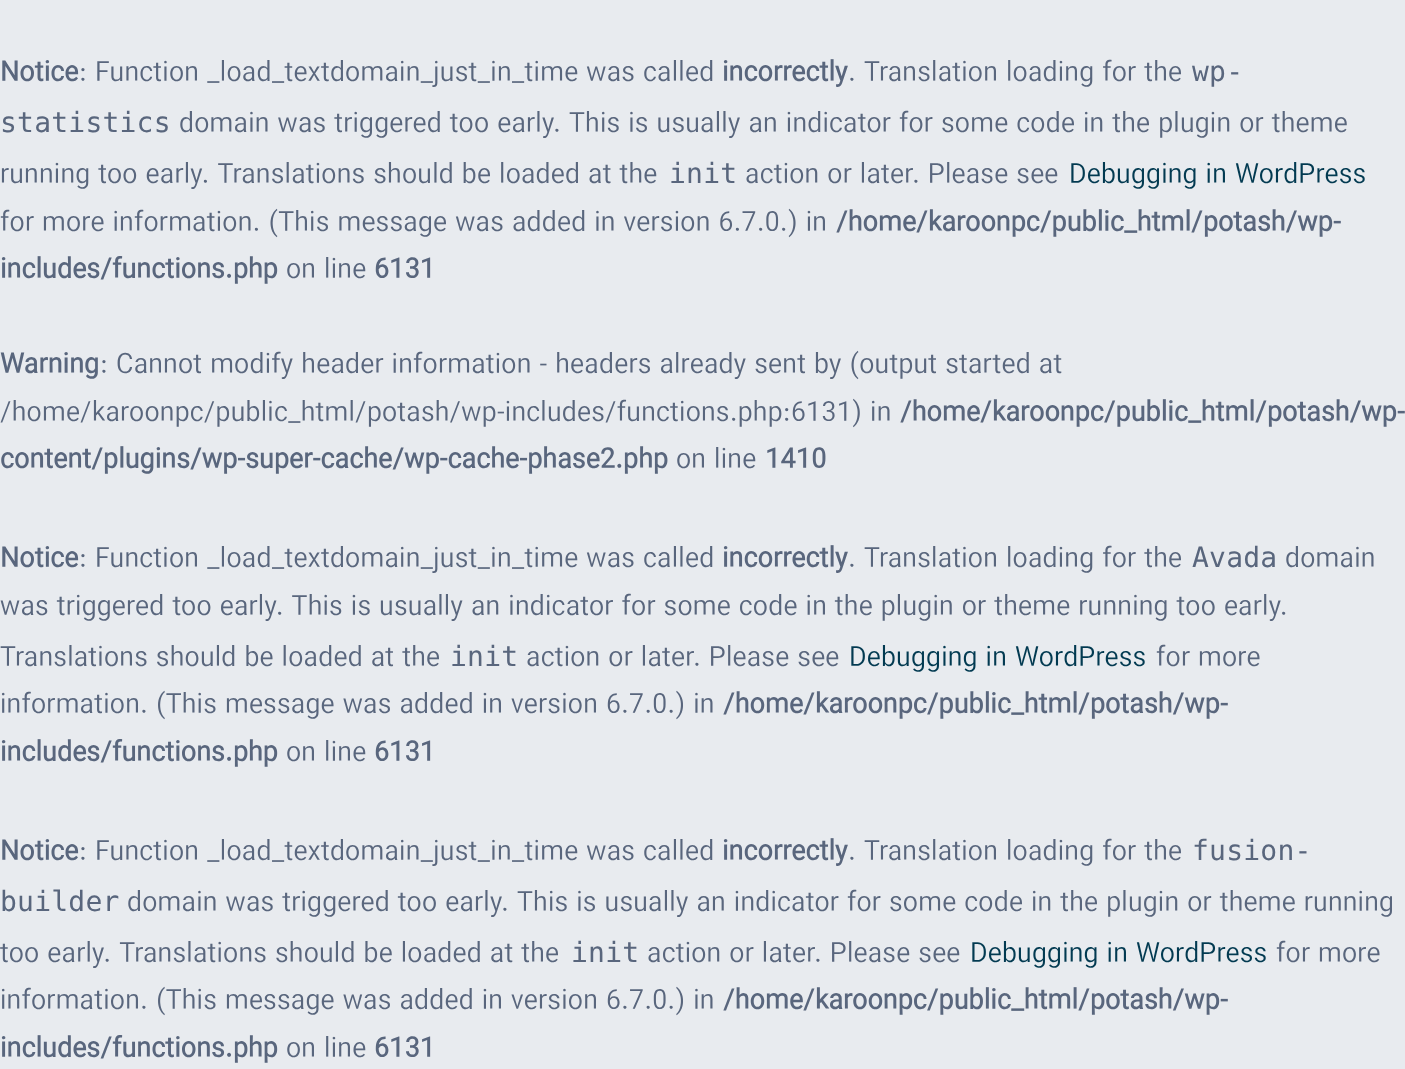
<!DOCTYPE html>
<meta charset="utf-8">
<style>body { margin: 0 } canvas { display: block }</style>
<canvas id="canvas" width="1405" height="1069"></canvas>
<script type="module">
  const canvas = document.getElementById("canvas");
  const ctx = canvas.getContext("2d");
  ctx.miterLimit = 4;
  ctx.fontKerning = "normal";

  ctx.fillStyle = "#e8ebef";
  ctx.fillRect(0, 0, 1405, 1069);
  ctx.letterSpacing = "0.22px";
  ctx.font = "bold 28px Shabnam";
  ctx.fillStyle = "#59667d";
  ctx.fillText("Notice", 0, 81);
  ctx.font = "300 28px Shabnam";
  ctx.fillText(": Function _load_textdomain_just_in_time was called", 79, 81);
  ctx.font = "bold 28px Shabnam";
  ctx.fillText("incorrectly", 722, 81);
  ctx.font = "300 28px Shabnam";
  ctx.fillText(". Translation loading for the", 848, 81);
  ctx.font = "28px DejaVu Sans Mono";
  ctx.fillText("wp-", 1192, 81);
  ctx.fillText("statistics", 0, 132);
  ctx.font = "300 28px Shabnam";
  ctx.fillText("domain was triggered too early. This is usually an indicator for some code in the plugin or theme", 179, 132);
  ctx.fillText("running too early. Translations should be loaded at the", 0, 183);
  ctx.font = "28px DejaVu Sans Mono";
  ctx.fillText("init", 669, 183);
  ctx.font = "300 28px Shabnam";
  ctx.fillText("action or later. Please see", 745, 183);
  ctx.fillStyle = "#023a51";
  ctx.fillText("Debugging in WordPress", 1069, 183);
  ctx.fillStyle = "#59667d";
  ctx.fillText("for more information. (This message was added in version 6.7.0.) in", 0, 231);
  ctx.font = "bold 28px Shabnam";
  ctx.fillText("/home/karoonpc/public_html/potash/wp-", 836, 231);
  ctx.fillText("includes/functions.php", 0, 278);
  ctx.font = "300 28px Shabnam";
  ctx.fillText("on line", 286, 278);
  ctx.font = "bold 28px Shabnam";
  ctx.fillText("6131", 374, 278);
  ctx.fillText("Warning", 0, 373);
  ctx.font = "300 28px Shabnam";
  ctx.fillText(": Cannot modify header information - headers already sent by (output started at", 100, 373);
  ctx.fillText("/home/karoonpc/public_html/potash/wp-includes/functions.php:6131) in", 0, 421);
  ctx.font = "bold 28px Shabnam";
  ctx.fillText("/home/karoonpc/public_html/potash/wp-", 900, 421);
  ctx.fillText("content/plugins/wp-super-cache/wp-cache-phase2.php", 0, 468);
  ctx.font = "300 28px Shabnam";
  ctx.fillText("on line", 676, 468);
  ctx.font = "bold 28px Shabnam";
  ctx.fillText("1410", 765, 468);
  ctx.fillText("Notice", 0, 567);
  ctx.font = "300 28px Shabnam";
  ctx.fillText(": Function _load_textdomain_just_in_time was called", 79, 567);
  ctx.font = "bold 28px Shabnam";
  ctx.fillText("incorrectly", 722, 567);
  ctx.font = "300 28px Shabnam";
  ctx.fillText(". Translation loading for the", 848, 567);
  ctx.font = "28px DejaVu Sans Mono";
  ctx.fillText("Avada", 1192, 567);
  ctx.font = "300 28px Shabnam";
  ctx.fillText("domain", 1285, 567);
  ctx.fillText("was triggered too early. This is usually an indicator for some code in the plugin or theme running too early.", 0, 615);
  ctx.fillText("Translations should be loaded at the", 0, 666);
  ctx.font = "28px DejaVu Sans Mono";
  ctx.fillText("init", 450, 666);
  ctx.font = "300 28px Shabnam";
  ctx.fillText("action or later. Please see", 526, 666);
  ctx.fillStyle = "#023a51";
  ctx.fillText("Debugging in WordPress", 849, 666);
  ctx.fillStyle = "#59667d";
  ctx.fillText("for more", 1156, 666);
  ctx.fillText("information. (This message was added in version 6.7.0.) in", 0, 713);
  ctx.font = "bold 28px Shabnam";
  ctx.fillText("/home/karoonpc/public_html/potash/wp-", 723, 713);
  ctx.fillText("includes/functions.php", 0, 761);
  ctx.font = "300 28px Shabnam";
  ctx.fillText("on line", 286, 761);
  ctx.font = "bold 28px Shabnam";
  ctx.fillText("6131", 374, 761);
  ctx.fillText("Notice", 0, 860);
  ctx.font = "300 28px Shabnam";
  ctx.fillText(": Function _load_textdomain_just_in_time was called", 79, 860);
  ctx.font = "bold 28px Shabnam";
  ctx.fillText("incorrectly", 722, 860);
  ctx.font = "300 28px Shabnam";
  ctx.fillText(". Translation loading for the", 848, 860);
  ctx.font = "28px DejaVu Sans Mono";
  ctx.fillText("fusion-", 1192, 860);
  ctx.fillText("builder", 0, 911);
  ctx.font = "300 28px Shabnam";
  ctx.fillText("domain was triggered too early. This is usually an indicator for some code in the plugin or theme running", 127, 911);
  ctx.fillText("too early. Translations should be loaded at the", 0, 962);
  ctx.font = "28px DejaVu Sans Mono";
  ctx.fillText("init", 571, 962);
  ctx.font = "300 28px Shabnam";
  ctx.fillText("action or later. Please see", 647, 962);
  ctx.fillStyle = "#023a51";
  ctx.fillText("Debugging in WordPress", 970, 962);
  ctx.fillStyle = "#59667d";
  ctx.fillText("for more", 1276, 962);
  ctx.fillText("information. (This message was added in version 6.7.0.) in", 0, 1009);
  ctx.font = "bold 28px Shabnam";
  ctx.fillText("/home/karoonpc/public_html/potash/wp-", 723, 1009);
  ctx.fillText("includes/functions.php", 0, 1057);
  ctx.font = "300 28px Shabnam";
  ctx.fillText("on line", 286, 1057);
  ctx.font = "bold 28px Shabnam";
  ctx.fillText("6131", 374, 1057);
</script>
